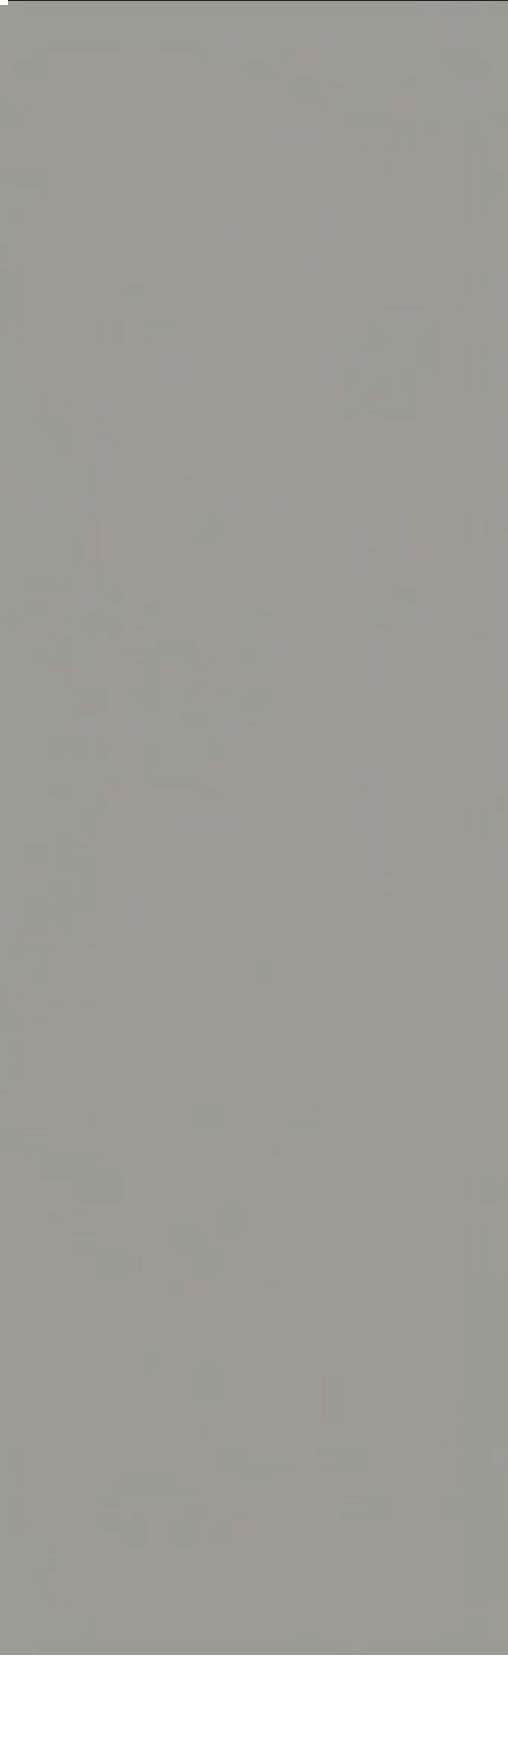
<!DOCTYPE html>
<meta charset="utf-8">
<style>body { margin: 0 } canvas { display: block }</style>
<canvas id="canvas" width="508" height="1761"></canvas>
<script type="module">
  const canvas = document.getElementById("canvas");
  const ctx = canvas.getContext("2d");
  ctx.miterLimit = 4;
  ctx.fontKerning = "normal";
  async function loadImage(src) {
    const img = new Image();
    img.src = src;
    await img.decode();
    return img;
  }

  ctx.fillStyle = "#ffffff";
  ctx.fillRect(0, 0, 508, 1761);
  ctx.fillStyle = "#232323";
  ctx.fillRect(0, 0, 508, 1655);
  ctx.drawImage(await loadImage("img1.png"), 0, 1, 508, 1654);
  ctx.fillStyle = "#ffffff";
  ctx.fillRect(0, 0, 8, 5);
</script>
